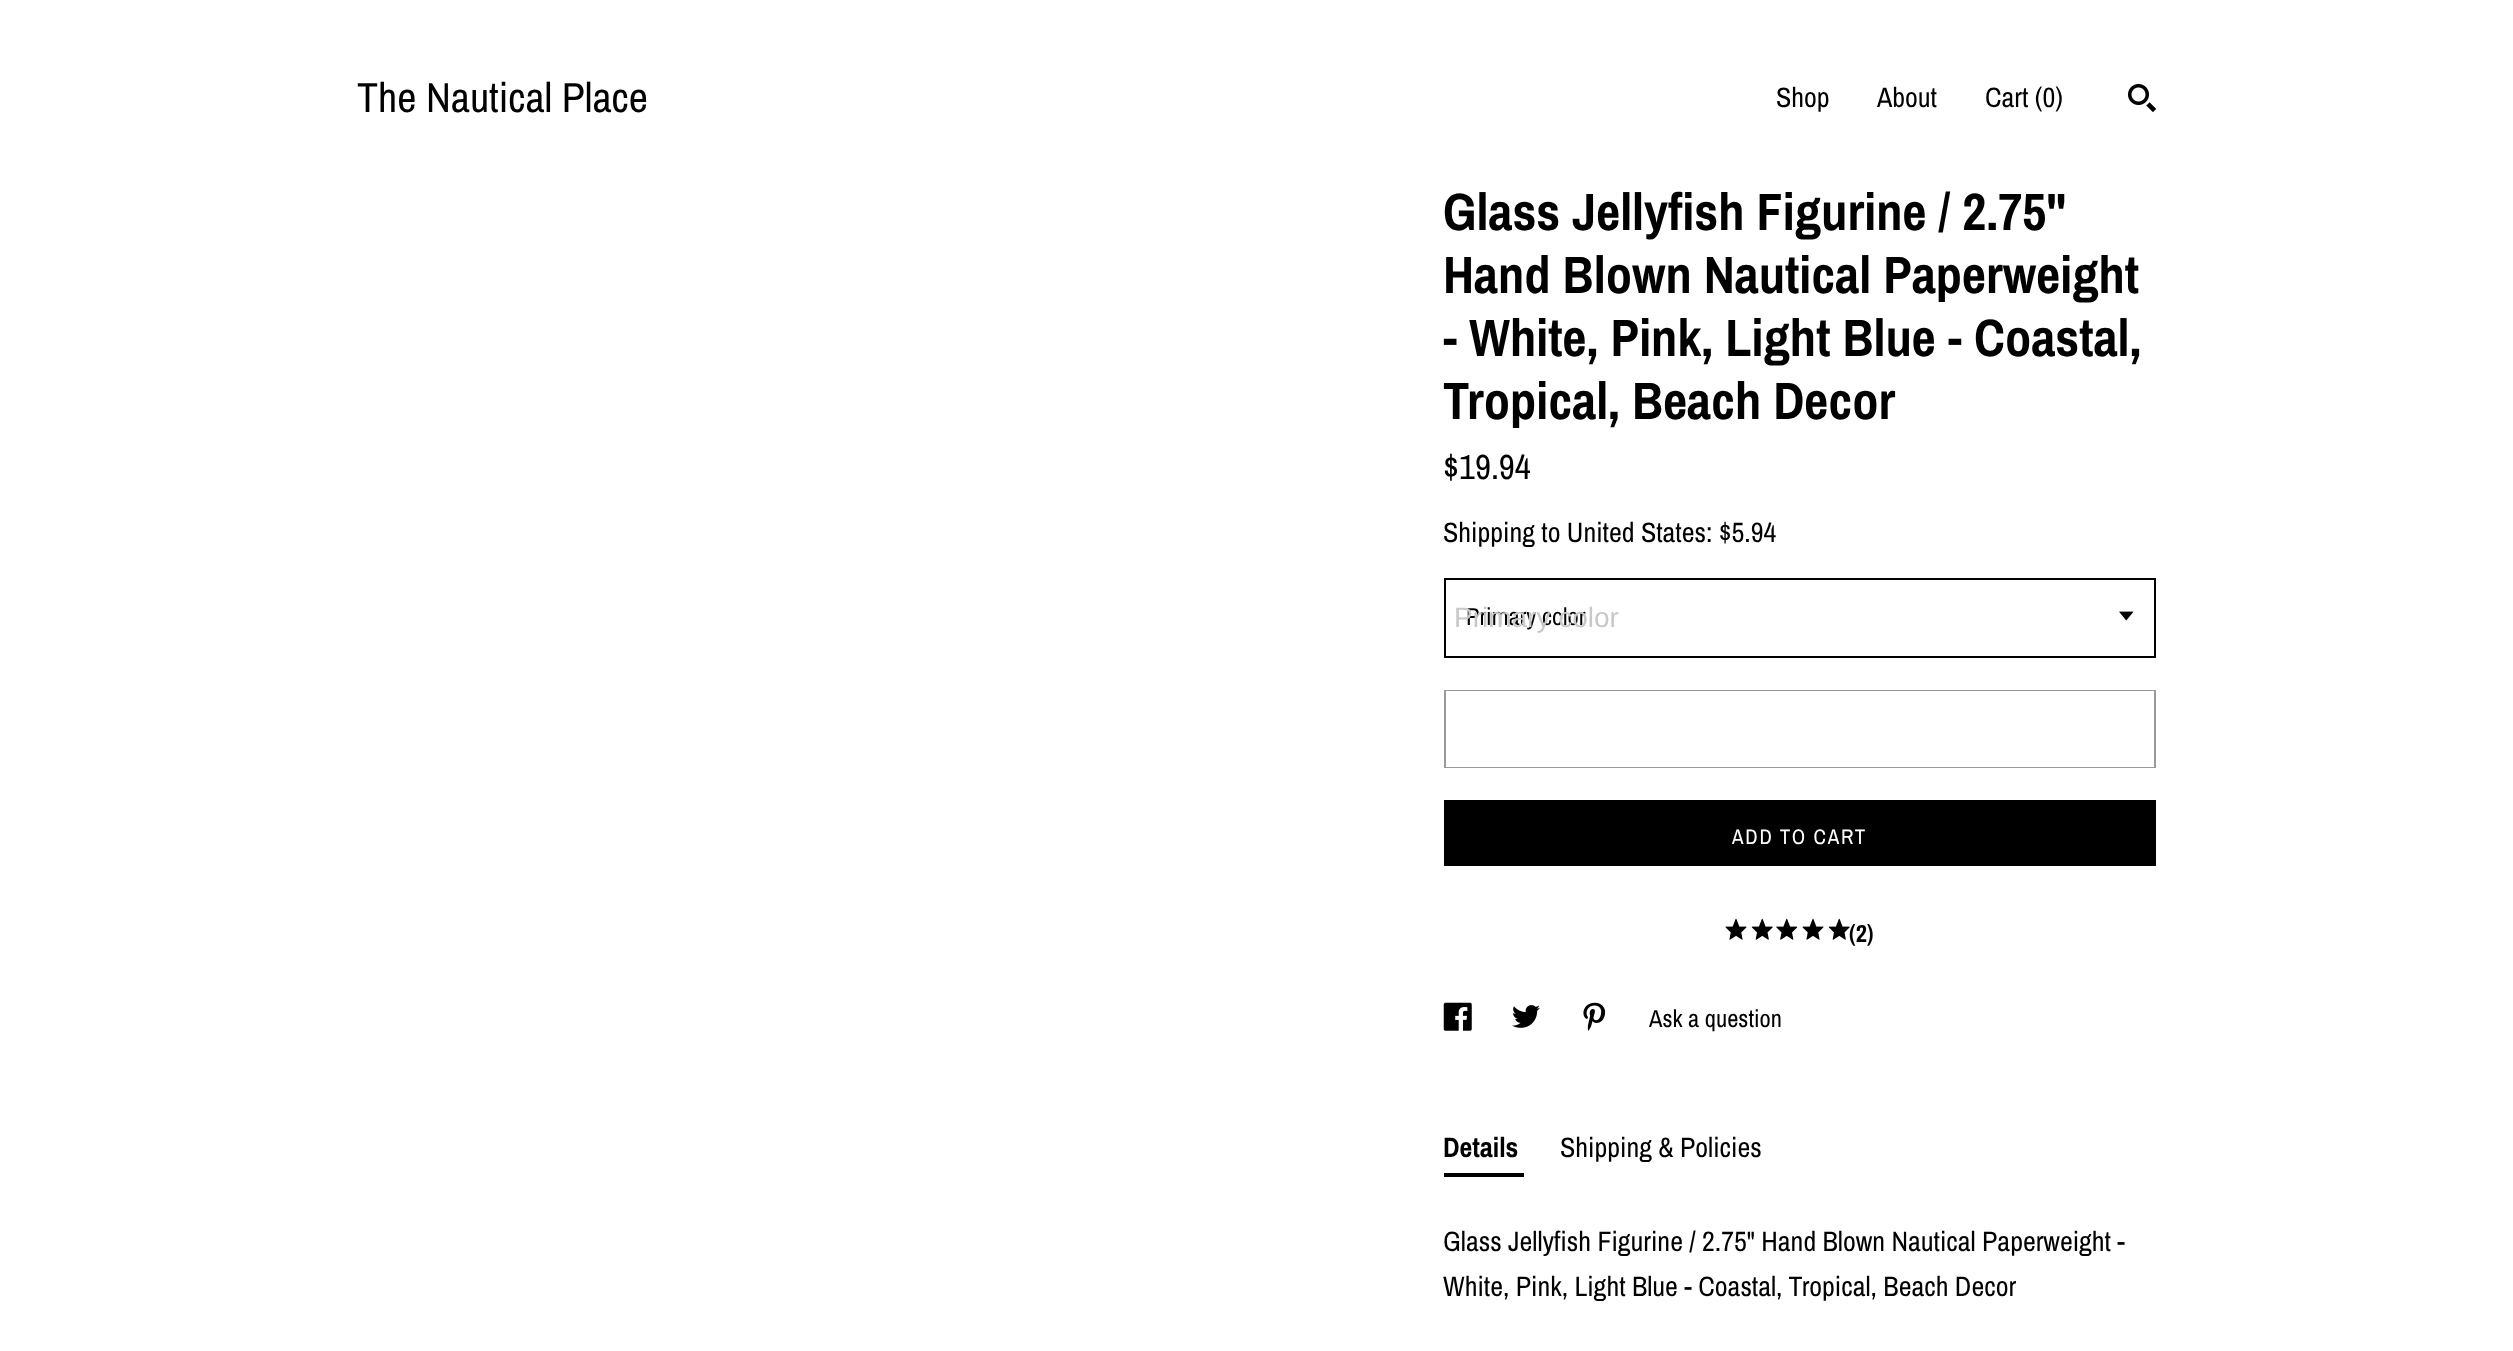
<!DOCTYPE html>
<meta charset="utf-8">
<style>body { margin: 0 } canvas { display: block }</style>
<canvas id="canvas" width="2513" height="1351"></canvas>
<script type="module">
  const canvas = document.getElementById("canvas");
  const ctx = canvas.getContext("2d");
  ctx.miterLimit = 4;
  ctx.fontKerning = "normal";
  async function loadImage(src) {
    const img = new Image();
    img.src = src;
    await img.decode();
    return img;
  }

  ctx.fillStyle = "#ffffff";
  ctx.fillRect(0, 0, 2513, 1351);
  ctx.font = "42px Archivo Narrow";
  ctx.fillStyle = "#000000";
  ctx.fillText("The Nautical Place", 357, 112);
  ctx.font = "28px Archivo Narrow";
  ctx.fillText("Shop", 1776, 107);
  ctx.fillText("About", 1877, 107);
  ctx.fillText("Cart (0)", 1985, 107);
  ctx.drawImage(await loadImage("img1.png"), 2128, 84, 28, 28);
  ctx.font = "bold 52.5px Archivo Narrow";
  ctx.fillText("Glass Jellyfish Figurine / 2.75\"", 1443, 230);
  ctx.fillText("Hand Blown Nautical Paperweight", 1443, 293);
  ctx.fillText("- White, Pink, Light Blue - Coastal,", 1443, 356);
  ctx.fillText("Tropical, Beach Decor", 1443, 419);
  ctx.font = "35px Archivo Narrow";
  ctx.fillText("$19.94", 1443, 479);
  ctx.font = "28px Archivo Narrow";
  ctx.fillText("Shipping to United States: $5.94", 1443, 542);
  ctx.strokeStyle = "#000000";
  ctx.lineWidth = 2;
  ctx.strokeRect(1445, 579, 710, 78);
  ctx.font = "24.5px Archivo Narrow";
  ctx.fillText("Primary color", 1466, 625);
  ctx.font = "28px Liberation Sans";
  ctx.fillStyle = "#c8c8c8";
  ctx.fillText("Primary color", 1454, 627);
  ctx.drawImage(await loadImage("img2.png"), 2119, 611, 15, 10);
  ctx.strokeStyle = "#999999";
  ctx.strokeRect(1445, 691, 710, 76);
  ctx.fillStyle = "#ffffff";
  ctx.fillRect(1446, 691, 708, 76);
  ctx.fillStyle = "#000000";
  ctx.fillRect(1444, 800, 712, 66);
  ctx.letterSpacing = "1.75px";
  ctx.font = "21px Archivo Narrow";
  ctx.fillStyle = "#ffffff";
  ctx.fillText("ADD TO CART", 1732, 844);
  ctx.drawImage(await loadImage("img3.png"), 1725, 918, 22, 22);
  ctx.drawImage(await loadImage("img4.png"), 1751, 918, 22, 22);
  ctx.drawImage(await loadImage("img5.png"), 1776, 918, 22, 22);
  ctx.drawImage(await loadImage("img3.png"), 1802, 918, 22, 22);
  ctx.drawImage(await loadImage("img4.png"), 1828, 918, 22, 22);
  ctx.letterSpacing = "0px";
  ctx.font = "bold 24.5px Archivo Narrow";
  ctx.fillStyle = "#000000";
  ctx.fillText("(2)", 1849, 942);
  ctx.drawImage(await loadImage("img6.png"), 1443, 1002, 29, 29);
  ctx.drawImage(await loadImage("img7.png"), 1512, 1005, 28, 23);
  ctx.drawImage(await loadImage("img8.png"), 1583, 1002, 23, 29);
  ctx.font = "24.5px Archivo Narrow";
  ctx.fillText("Ask a question", 1649, 1027);
  ctx.font = "bold 28px Archivo Narrow";
  ctx.fillText("Details", 1443, 1157);
  ctx.fillRect(1444, 1173, 80, 4);
  ctx.font = "28px Archivo Narrow";
  ctx.fillText("Shipping & Policies", 1560, 1157);
  ctx.fillText("Glass Jellyfish Figurine / 2.75\" Hand Blown Nautical Paperweight -", 1443, 1251);
  ctx.fillText("White, Pink, Light Blue - Coastal, Tropical, Beach Decor", 1443, 1296);
</script>
